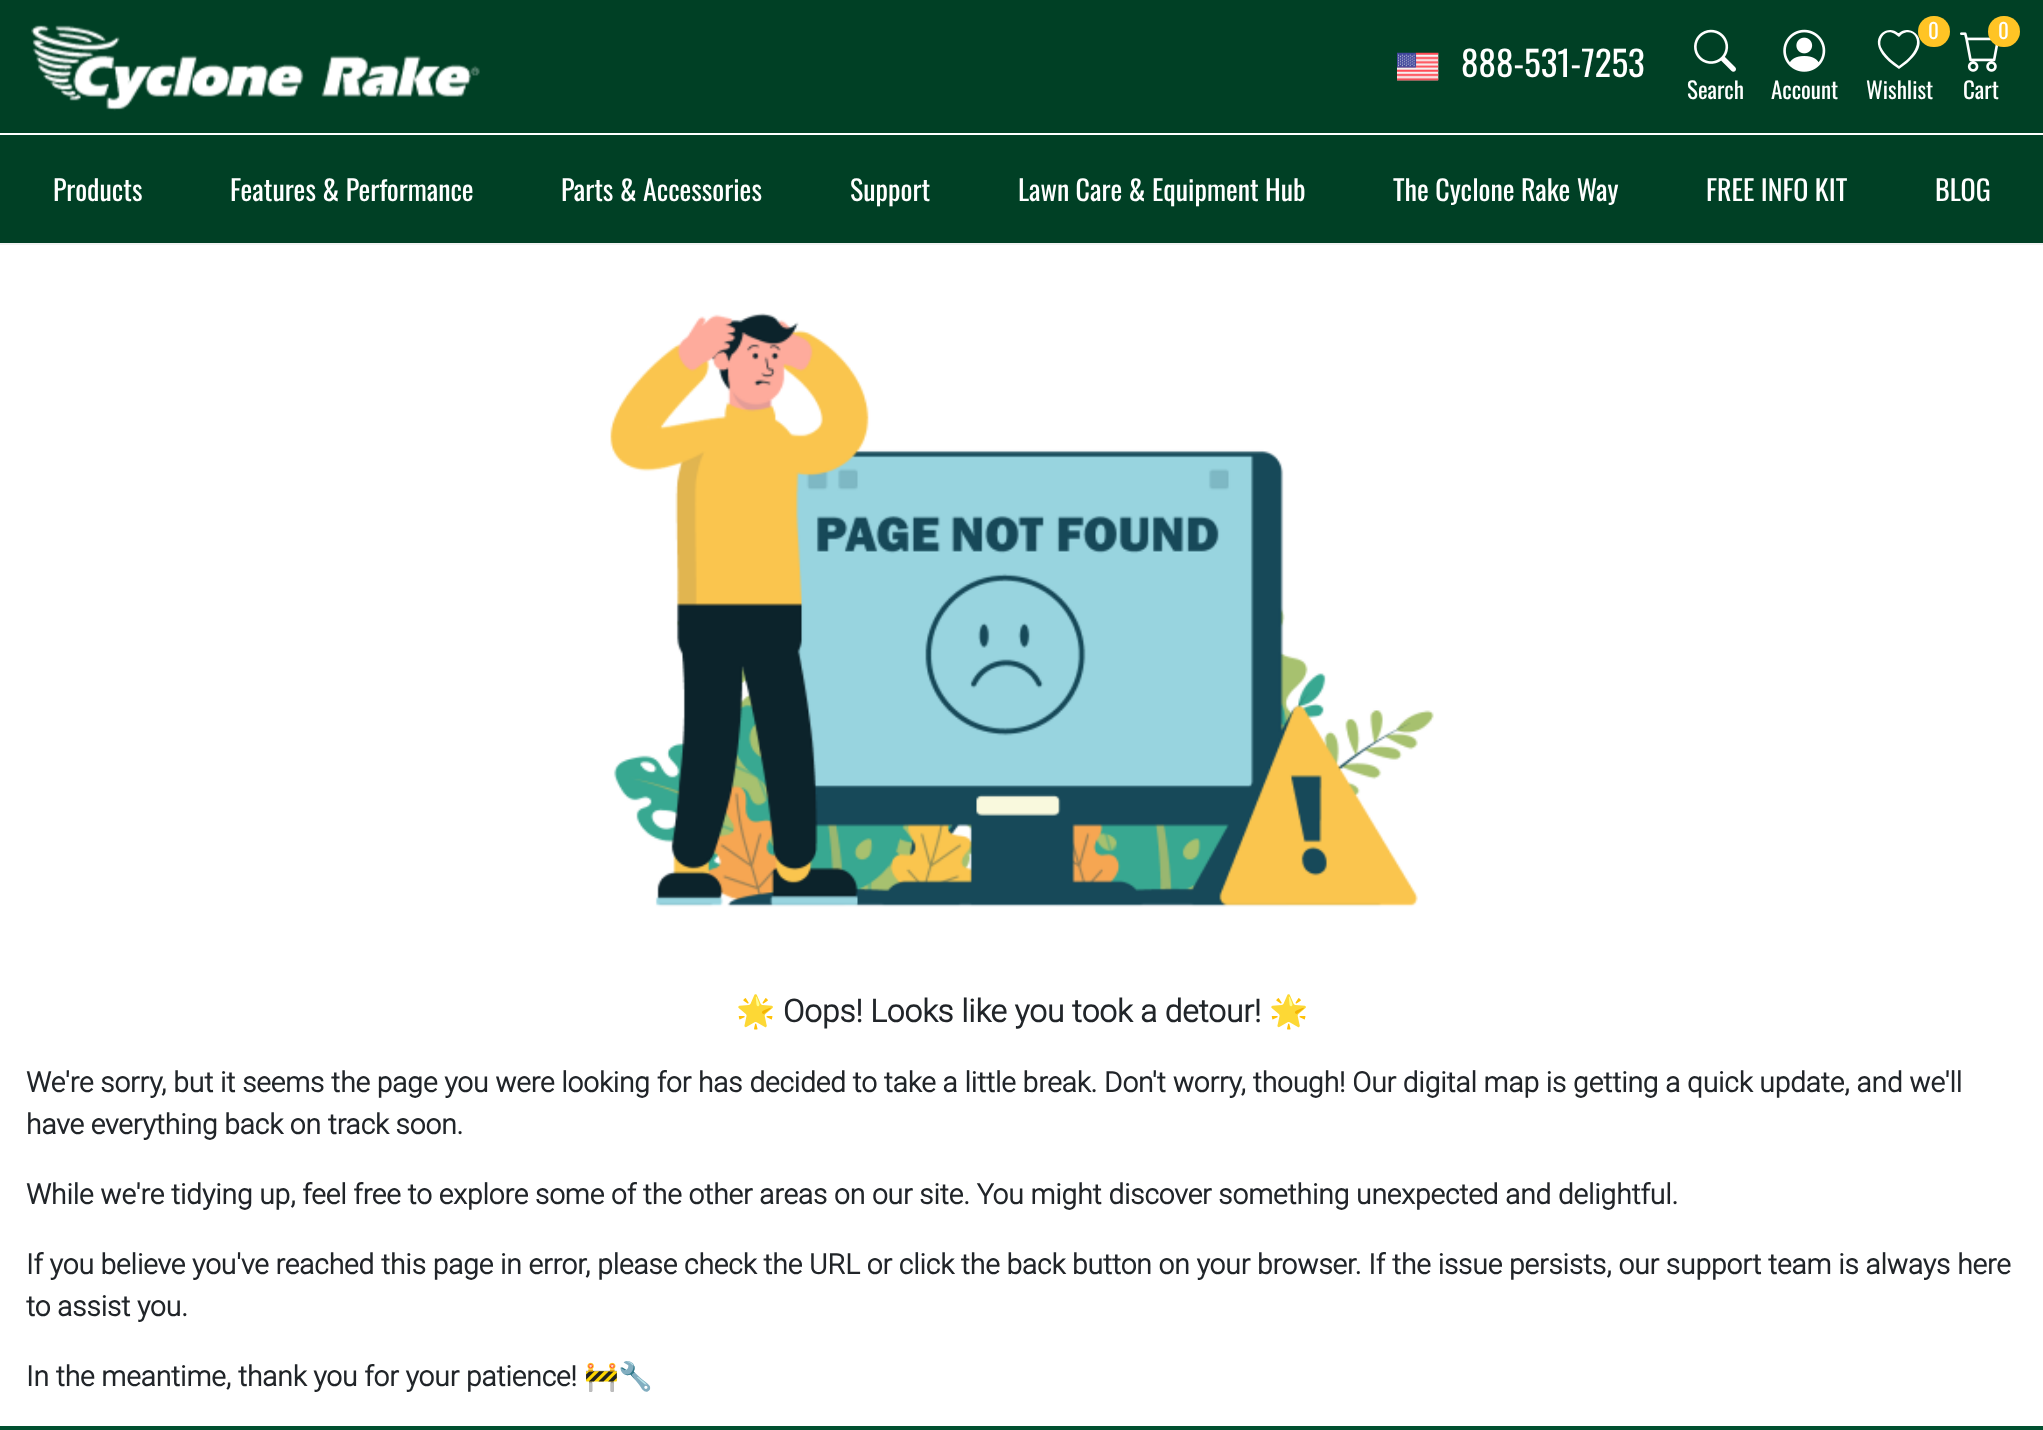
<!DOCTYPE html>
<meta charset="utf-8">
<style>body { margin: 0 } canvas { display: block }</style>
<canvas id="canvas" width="2043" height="1430"></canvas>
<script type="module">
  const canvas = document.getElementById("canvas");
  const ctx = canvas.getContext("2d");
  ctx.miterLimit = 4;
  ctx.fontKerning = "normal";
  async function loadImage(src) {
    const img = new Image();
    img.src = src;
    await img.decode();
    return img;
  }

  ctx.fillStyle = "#ffffff";
  ctx.fillRect(0, 0, 2043, 1430);
  ctx.fillStyle = "#004025";
  ctx.fillRect(0, 0, 2043, 243);
  ctx.fillStyle = "#f2f2f2";
  ctx.fillRect(0, 243, 2043, 2);
  ctx.drawImage(await loadImage("img1.png"), 31, 25, 449, 86);
  ctx.drawImage(await loadImage("img2.png"), 1397, 52, 42, 29);
  ctx.font = "35px Oswald";
  ctx.fillStyle = "#ffffff";
  ctx.fillText("888-531-7253", 1461, 77);
  ctx.beginPath();
  ctx.moveTo(1899, 37);
  ctx.lineTo(1895, 34);
  ctx.bezierCurveTo(1886, 28, 1878, 38, 1881, 47);
  ctx.bezierCurveTo(1885, 55, 1892, 61, 1899, 66);
  ctx.bezierCurveTo(1906, 61, 1913, 55, 1916, 47);
  ctx.bezierCurveTo(1920, 38, 1912, 28, 1902, 34);
  ctx.closePath();
  ctx.moveTo(1899, 69);
  ctx.bezierCurveTo(1859, 43, 1886, 22, 1898, 33);
  ctx.lineTo(1899, 33);
  ctx.bezierCurveTo(1911, 22, 1939, 43, 1899, 69);
  ctx.closePath();
  ctx.fill();
  ctx.fillStyle = "#ffc425";
  ctx.beginPath();
  ctx.roundRect(1918, 16, 32, 31, 15.5);
  ctx.fill();
  ctx.font = "21px Oswald";
  ctx.fillStyle = "#ffffff";
  ctx.fillText("0", 1928, 39);
  ctx.font = "23px Oswald";
  ctx.fillText("Wishlist", 1866, 99);
  ctx.drawImage(await loadImage("img3.png"), 1960, 32, 38, 40);
  ctx.fillStyle = "#ffc425";
  ctx.beginPath();
  ctx.roundRect(1988, 16, 32, 31, 15.5);
  ctx.fill();
  ctx.font = "21px Oswald";
  ctx.fillStyle = "#ffffff";
  ctx.fillText("0", 1998, 39);
  ctx.font = "23px Oswald";
  ctx.fillText("Cart", 1963, 99);
  ctx.drawImage(await loadImage("img4.png"), 1694, 29, 42, 43);
  ctx.fillText("Search", 1687, 99);
  ctx.drawImage(await loadImage("img5.png"), 1783, 29, 43, 43);
  ctx.fillText("Account", 1771, 99);
  ctx.fillRect(0, 133, 2043, 2);
  ctx.font = "28px Oswald";
  ctx.fillText("Products", 53, 201);
  ctx.fillText("Features & Performance", 230, 201);
  ctx.fillText("Parts & Accessories", 561, 201);
  ctx.fillText("Support", 850, 201);
  ctx.fillText("Lawn Care & Equipment Hub", 1018, 201);
  ctx.fillText("The Cyclone Rake Way", 1393, 201);
  ctx.fillText("FREE INFO KIT", 1706, 201);
  ctx.fillText("BLOG", 1935, 201);
  ctx.drawImage(await loadImage("img6.png"), 610, 313, 824, 594);
  ctx.font = "bold 31.5px Noto Color Emoji";
  ctx.fillStyle = "#212529";
  ctx.fillText("🌟", 736, 1022);
  ctx.font = "bold 31.5px Roboto";
  ctx.fillText("Oops! Looks like you took a detour!", 783, 1022);
  ctx.font = "bold 31.5px Noto Color Emoji";
  ctx.fillText("🌟", 1269, 1022);
  ctx.font = "bold 28px Roboto";
  ctx.fillText("We're sorry, but it seems the page you were looking for has decided to take a little break. Don't worry, though! Our digital map is getting a quick update, and we'll", 26, 1092);
  ctx.fillText("have everything back on track soon.", 26, 1134);
  ctx.fillText("While we're tidying up, feel free to explore some of the other areas on our site. You might discover something unexpected and delightful.", 26, 1204);
  ctx.fillText("If you believe you've reached this page in error, please check the URL or click the back button on your browser. If the issue persists, our support team is always here", 26, 1274);
  ctx.fillText("to assist you.", 26, 1316);
  ctx.fillText("In the meantime, thank you for your patience!", 26, 1386);
  ctx.font = "bold 28px Noto Color Emoji";
  ctx.fillText("🚧🔧", 584, 1386);
  ctx.fillStyle = "#00502f";
  ctx.fillRect(0, 1426, 2043, 4);
</script>
